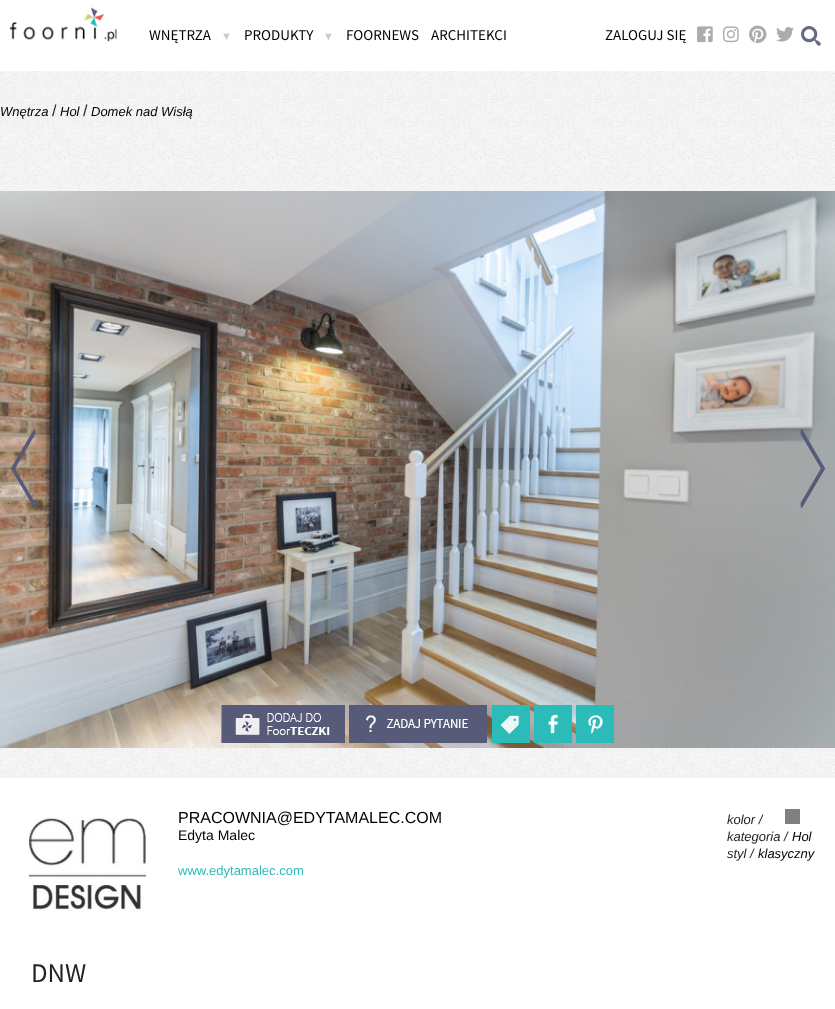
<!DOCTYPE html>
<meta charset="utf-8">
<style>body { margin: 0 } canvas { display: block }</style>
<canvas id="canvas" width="835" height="1009"></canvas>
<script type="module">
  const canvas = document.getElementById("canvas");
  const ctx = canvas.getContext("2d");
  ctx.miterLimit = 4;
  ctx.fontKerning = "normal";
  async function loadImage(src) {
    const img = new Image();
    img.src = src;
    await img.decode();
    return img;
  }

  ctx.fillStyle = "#ffffff";
  ctx.fillRect(0, 0, 835, 1009);
  ctx.drawImage(await loadImage("img1.png"), 0, 71, 835, 707);
  ctx.drawImage(await loadImage("img2.png"), 10, 7, 107, 35);
  ctx.font = "15px Source Sans Pro";
  ctx.fillStyle = "#000000";
  ctx.fillText("WNĘTRZA", 149, 40);
  ctx.font = "11px Liberation Sans";
  ctx.fillStyle = "#cccccc";
  ctx.fillText("▼", 221, 40);
  ctx.font = "15px Source Sans Pro";
  ctx.fillStyle = "#000000";
  ctx.fillText("PRODUKTY", 244, 40);
  ctx.font = "11px Liberation Sans";
  ctx.fillStyle = "#cccccc";
  ctx.fillText("▼", 323, 40);
  ctx.font = "15px Source Sans Pro";
  ctx.fillStyle = "#000000";
  ctx.fillText("FOORNEWS", 346, 40);
  ctx.fillText("ARCHITEKCI", 431, 40);
  ctx.fillText("ZALOGUJ SIĘ", 605, 40);
  ctx.drawImage(await loadImage("img3.png"), 697, 26, 16, 17);
  ctx.drawImage(await loadImage("img4.png"), 723, 26, 16, 17);
  ctx.drawImage(await loadImage("img5.png"), 749, 25, 18, 18);
  ctx.drawImage(await loadImage("img6.png"), 776, 27, 18, 15);
  ctx.drawImage(await loadImage("img7.png"), 801, 26, 20, 20);
  ctx.font = "italic 13px Arimo";
  ctx.fillText("Wnętrza", 0, 116);
  ctx.font = "16px Arimo";
  ctx.fillStyle = "#222222";
  ctx.fillText("/", 52, 116);
  ctx.font = "italic 13px Arimo";
  ctx.fillStyle = "#000000";
  ctx.fillText("Hol", 60, 116);
  ctx.font = "16px Arimo";
  ctx.fillStyle = "#222222";
  ctx.fillText("/", 83, 116);
  ctx.font = "italic 13px Arimo";
  ctx.fillStyle = "#000000";
  ctx.fillText("Domek nad Wisłą", 91, 116);
  ctx.drawImage(await loadImage("img8.png"), 0, 191, 835, 557);
  ctx.drawImage(await loadImage("img9.png"), 11, 429, 25, 79);
  ctx.drawImage(await loadImage("img10.png"), 800, 429, 25, 79);
  ctx.drawImage(await loadImage("img11.png"), 221, 705, 124, 38);
  ctx.drawImage(await loadImage("img12.png"), 349, 705, 138, 38);
  ctx.drawImage(await loadImage("img13.png"), 492, 705, 38, 38);
  ctx.drawImage(await loadImage("img14.png"), 534, 705, 38, 38);
  ctx.drawImage(await loadImage("img15.png"), 576, 705, 38, 38);
  ctx.drawImage(await loadImage("img16.png"), 29, 818, 117, 94);
  ctx.font = "16px Arimo";
  ctx.fillText("PRACOWNIA@EDYTAMALEC.COM", 178, 823);
  ctx.font = "14px Arimo";
  ctx.fillText("Edyta Malec", 178, 840);
  ctx.font = "13px Arimo";
  ctx.fillStyle = "#2bbcb9";
  ctx.fillText("www.edytamalec.com", 178, 875);
  ctx.font = "italic 13px Arimo";
  ctx.fillStyle = "#222222";
  ctx.fillText("kolor /", 727, 824);
  ctx.fillStyle = "#808080";
  ctx.fillRect(785, 809, 15, 15);
  ctx.fillStyle = "#222222";
  ctx.fillText("kategoria /", 727, 841);
  ctx.fillStyle = "#000000";
  ctx.fillText("Hol", 792, 841);
  ctx.fillStyle = "#222222";
  ctx.fillText("styl /", 727, 858);
  ctx.fillStyle = "#000000";
  ctx.fillText("klasyczny", 758, 858);
  ctx.font = "27px Source Sans Pro";
  ctx.fillStyle = "#222222";
  ctx.fillText("DNW", 31, 982);
</script>
